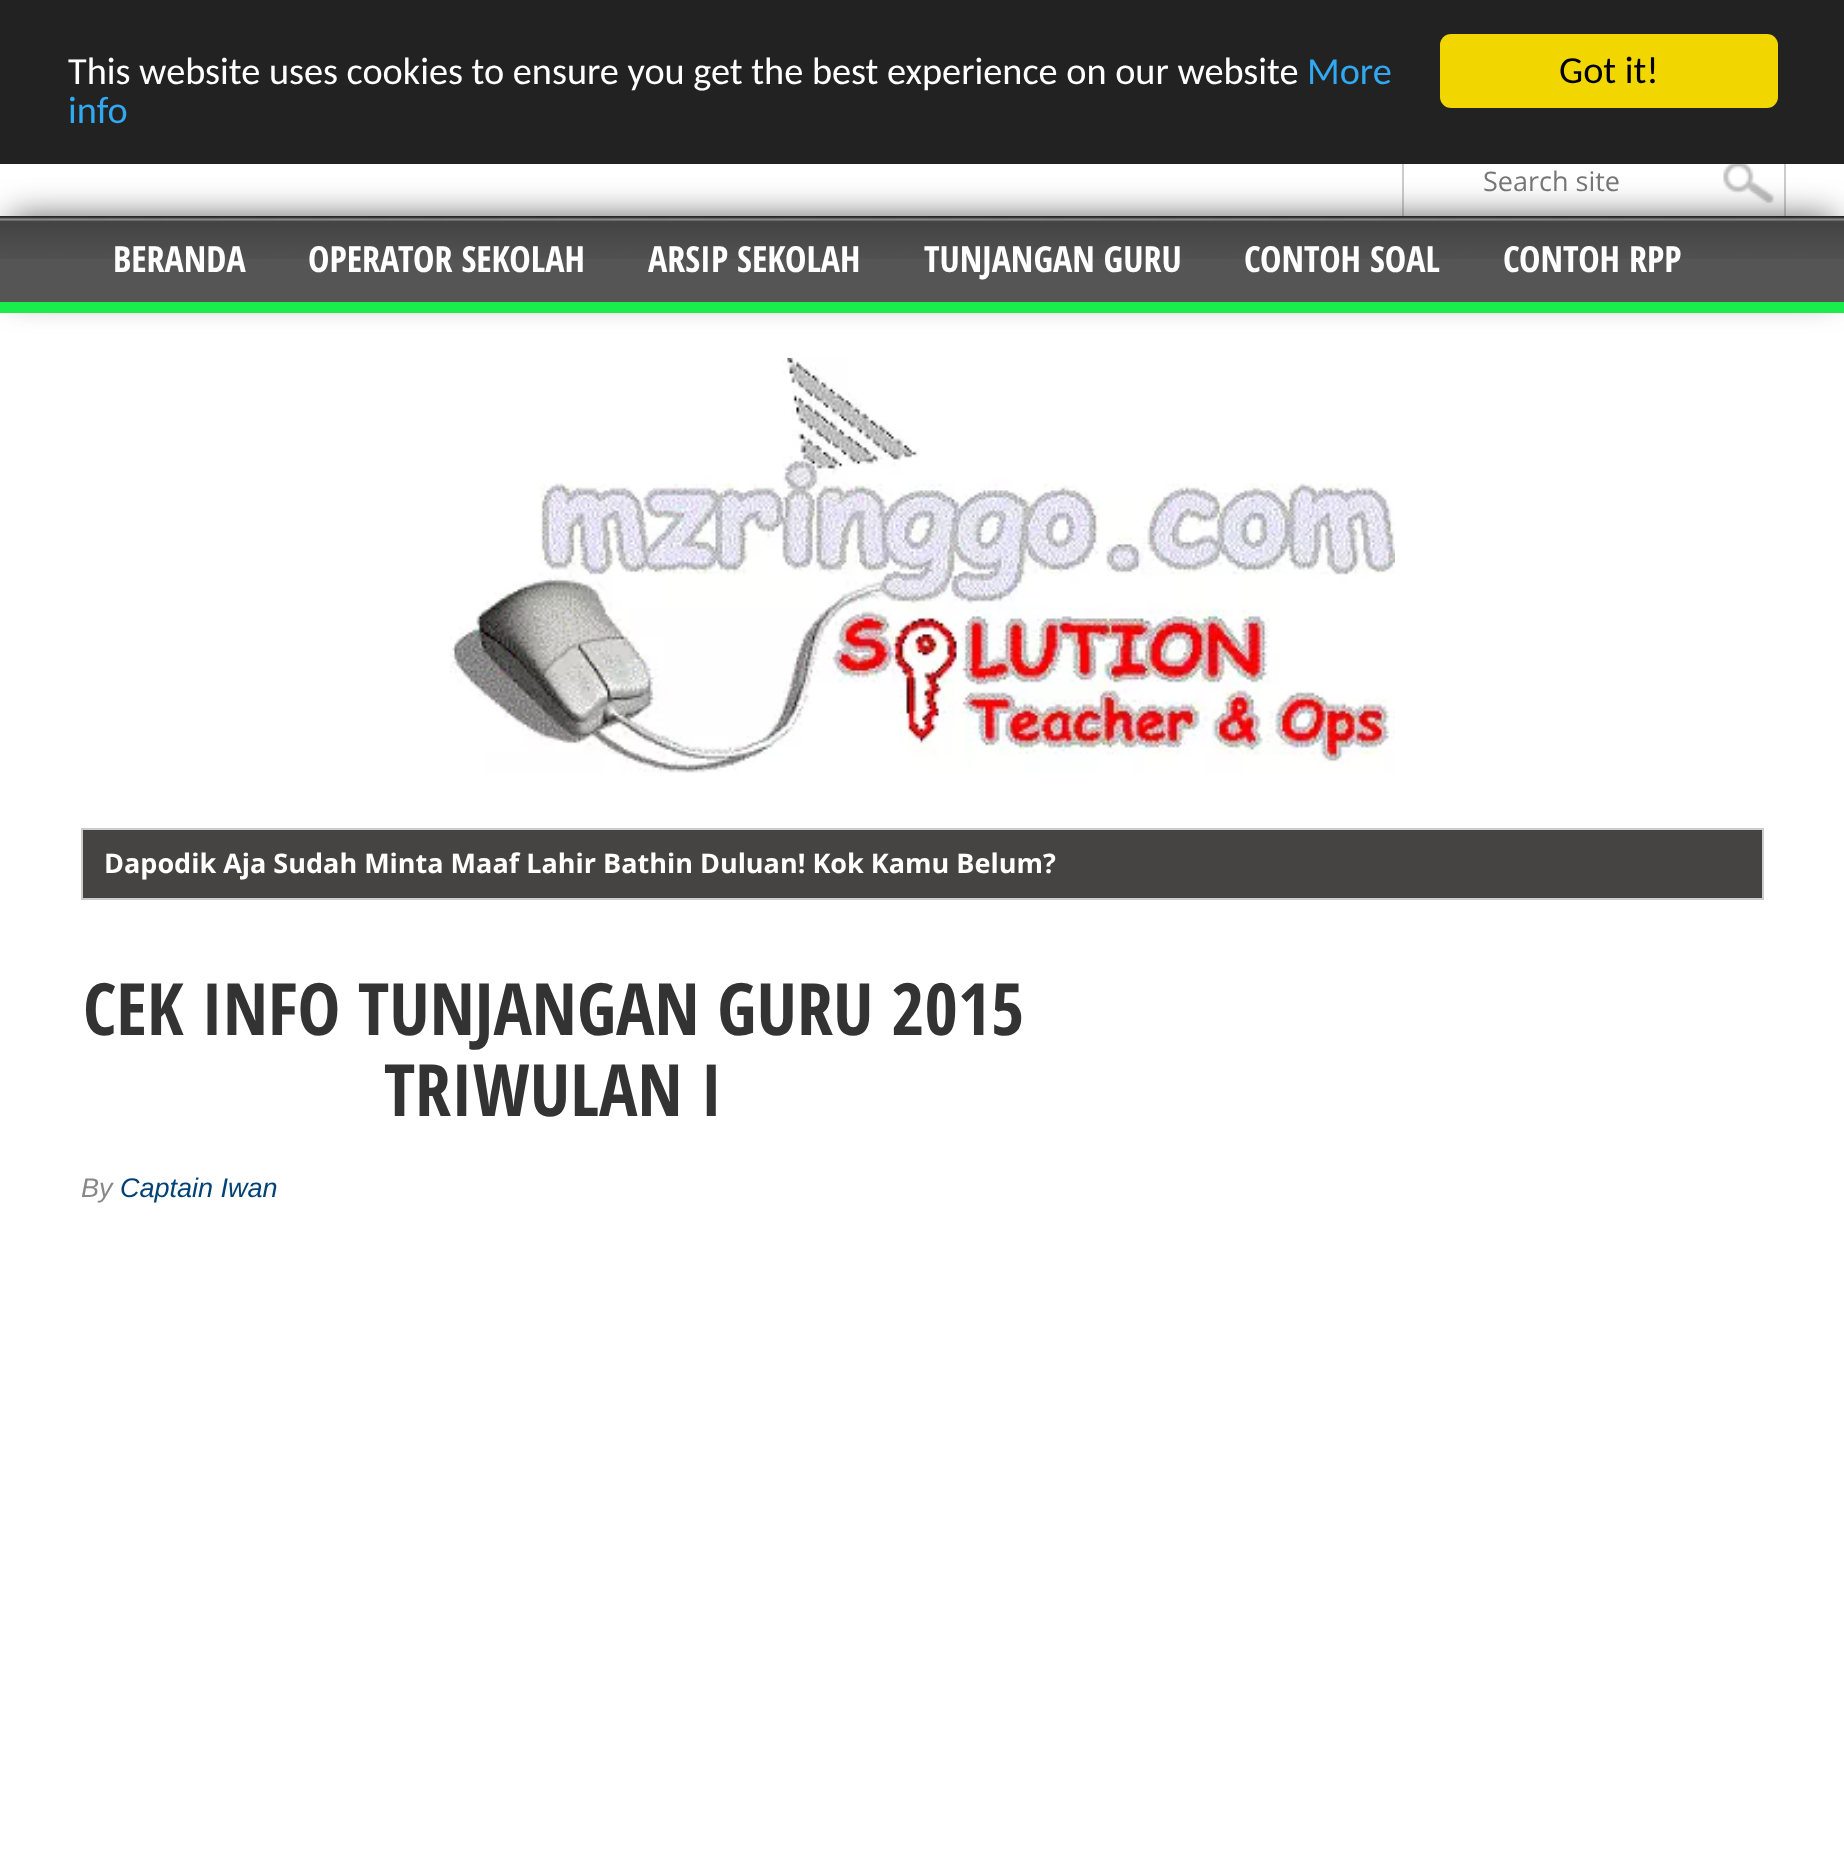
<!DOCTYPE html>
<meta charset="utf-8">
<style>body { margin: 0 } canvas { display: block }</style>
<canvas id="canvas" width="1844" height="1867"></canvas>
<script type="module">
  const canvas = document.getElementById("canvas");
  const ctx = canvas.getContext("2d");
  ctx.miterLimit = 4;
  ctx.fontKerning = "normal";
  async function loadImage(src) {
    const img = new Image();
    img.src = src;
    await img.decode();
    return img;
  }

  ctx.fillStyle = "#ffffff";
  ctx.fillRect(0, 0, 1844, 1867);
  ctx.fillStyle = "#222222";
  ctx.fillRect(0, 0, 1844, 164);
  ctx.font = "38.25px Carlito";
  ctx.fillStyle = "#ffffff";
  ctx.fillText("This website uses cookies to ensure you get the best experience on our website", 68, 84);
  ctx.fillStyle = "#31a8f0";
  ctx.fillText("More", 1307, 84);
  ctx.fillText("info", 68, 123);
  ctx.fillStyle = "#f1d600";
  ctx.beginPath();
  ctx.roundRect(1440, 34, 338, 74, 11);
  ctx.fill();
  ctx.fillStyle = "#000000";
  ctx.fillText("Got it!", 1559, 83);
  ctx.fillStyle = "#cccccc";
  ctx.fillRect(1784, 164, 2, 52);
  ctx.fillRect(1402, 164, 2, 52);
  ctx.drawImage(await loadImage("img1.png"), 1723, 164, 51, 40);
  ctx.font = "27px Open Sans";
  ctx.fillStyle = "#777777";
  ctx.fillText("Search site", 1483, 191);
  ctx.fillStyle = "#555555";
  ctx.filter = "blur(17px)";
  ctx.beginPath();
  ctx.rect(11, 218, 1823, 75);
  ctx.fill();
  ctx.filter = "none";
  ctx.fillRect(0, 216, 1844, 86);
  ctx.drawImage(await loadImage("img2.png"), 0, 216, 1844, 43);
  ctx.fillStyle = "#1aed4b";
  ctx.fillRect(0, 302, 1844, 11);
  ctx.font = "bold 36px Open Sans Condensed";
  ctx.fillStyle = "#ffffff";
  ctx.fillText("BERANDA", 113, 272);
  ctx.fillText("OPERATOR SEKOLAH", 308, 272);
  ctx.fillText("ARSIP SEKOLAH", 648, 272);
  ctx.fillText("TUNJANGAN GURU", 924, 272);
  ctx.fillText("CONTOH SOAL", 1244, 272);
  ctx.fillText("CONTOH RPP", 1503, 272);
  ctx.drawImage(await loadImage("img3.png"), 450, 357, 945, 416);
  ctx.fillStyle = "#464343";
  ctx.beginPath();
  ctx.rect(82, 829, 1681, 70);
  ctx.fill();
  ctx.strokeStyle = "#cccccc";
  ctx.lineWidth = 2;
  ctx.stroke();
  ctx.font = "bold 27px Open Sans";
  ctx.fillStyle = "#ffffff";
  ctx.fillText("Dapodik Aja Sudah Minta Maaf Lahir Bathin Duluan! Kok Kamu Belum?", 104, 873);
  ctx.font = "bold 72px Open Sans Condensed";
  ctx.fillStyle = "#333333";
  ctx.fillText("CEK INFO TUNJANGAN GURU 2015", 83, 1035);
  ctx.fillText("TRIWULAN I", 384, 1116);
  ctx.font = "italic 27px Liberation Sans";
  ctx.fillStyle = "#888888";
  ctx.fillText("By", 81, 1197);
  ctx.fillStyle = "#004276";
  ctx.fillText("Captain Iwan", 120, 1197);
</script>
